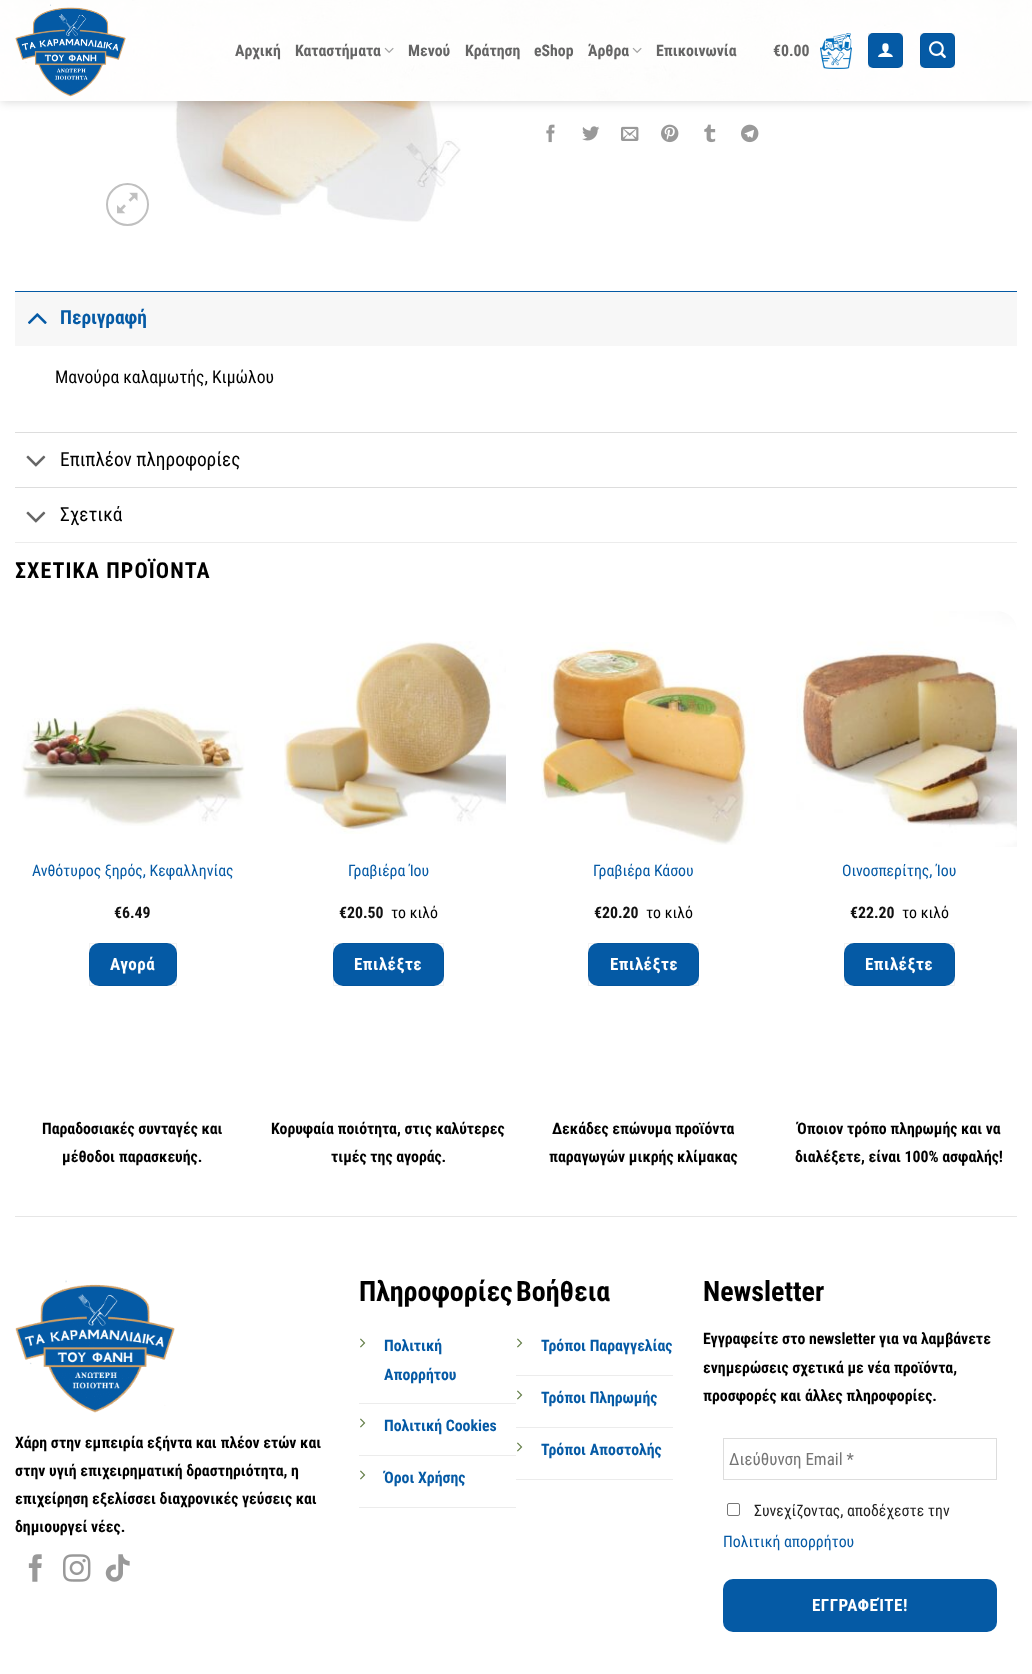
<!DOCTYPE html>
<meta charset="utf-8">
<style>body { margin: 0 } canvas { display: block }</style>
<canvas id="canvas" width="1032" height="1674"></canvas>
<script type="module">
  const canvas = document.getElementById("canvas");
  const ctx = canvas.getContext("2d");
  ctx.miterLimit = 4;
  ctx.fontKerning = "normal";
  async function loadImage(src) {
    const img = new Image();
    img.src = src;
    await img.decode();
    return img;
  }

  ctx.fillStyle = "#ffffff";
  ctx.fillRect(0, 0, 1032, 1674);
  ctx.drawImage(await loadImage("img9.png"), 166, 101, 295, 121);
  ctx.fillStyle = "rgba(0, 0, 0, 0.15)";
  ctx.filter = "blur(5px)";
  ctx.beginPath();
  ctx.rect(1, 1, 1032, 101);
  ctx.fill();
  ctx.filter = "none";
  ctx.drawImage(await loadImage("img1.png"), 0, 0, 1032, 101);
  ctx.drawImage(await loadImage("img2.png"), 15, 4, 111, 93);
  ctx.font = "bold 15.8px Roboto Condensed";
  ctx.fillStyle = "#656565";
  ctx.fillText("Αρχική", 235, 56);
  ctx.fillText("Καταστήματα", 295, 56);
  ctx.drawImage(await loadImage("img3.png"), 384, 47, 10, 6);
  ctx.fillText("Μενού", 408, 56);
  ctx.fillText("Κράτηση", 465, 56);
  ctx.fillText("eShop", 534, 56);
  ctx.fillText("Άρθρα", 588, 56);
  ctx.drawImage(await loadImage("img4.png"), 632, 47, 10, 6);
  ctx.fillText("Επικοινωνία", 656, 56);
  ctx.fillText("€0.00", 773, 56);
  ctx.drawImage(await loadImage("img5.png"), 820, 33, 32, 36);
  ctx.fillStyle = "#055aa5";
  ctx.beginPath();
  ctx.roundRect(868, 33, 35, 35, 5);
  ctx.fill();
  ctx.strokeStyle = "rgba(0, 0, 0, 0.05)";
  ctx.strokeRect(868.5, 33.5, 34, 34);
  ctx.drawImage(await loadImage("img6.png"), 878, 43, 15, 14);
  ctx.beginPath();
  ctx.roundRect(920, 33, 35, 35, 5);
  ctx.fill();
  ctx.strokeRect(920.5, 33.5, 34, 34);
  ctx.drawImage(await loadImage("img7.png"), 929, 41, 17, 17);
  ctx.beginPath();
  ctx.arc(127.5, 204.5, 20.5, 0, Math.PI * 2);
  ctx.strokeStyle = "#c0c0c0";
  ctx.lineWidth = 2;
  ctx.stroke();
  ctx.drawImage(await loadImage("img8.png"), 117, 192, 21, 22);
  ctx.drawImage(await loadImage("img10.png"), 546, 124, 9, 19);
  ctx.drawImage(await loadImage("img11.png"), 582, 126, 18, 15);
  ctx.drawImage(await loadImage("img12.png"), 621, 126, 18, 15);
  ctx.drawImage(await loadImage("img13.png"), 661, 124, 18, 19);
  ctx.drawImage(await loadImage("img14.png"), 704, 124, 12, 19);
  ctx.drawImage(await loadImage("img15.png"), 741, 124, 18, 19);
  ctx.fillStyle = "#f7f7f7";
  ctx.fillRect(15, 292, 1002, 54);
  ctx.fillStyle = "#055aa5";
  ctx.fillRect(15, 291, 1002, 1);
  ctx.drawImage(await loadImage("img16.png"), 28, 313, 19, 11);
  ctx.font = "bold 19.4px Roboto Condensed";
  ctx.fillText("Περιγραφή", 60, 324);
  ctx.font = "17.6px Roboto Condensed";
  ctx.fillStyle = "#000000";
  ctx.fillText("Μανούρα καλαμωτής, Κιμώλου", 55, 383);
  ctx.fillStyle = "#dddddd";
  ctx.fillRect(15, 432, 1002, 1);
  ctx.drawImage(await loadImage("img17.png"), 26, 455, 20, 12);
  ctx.font = "19.4px Roboto Condensed";
  ctx.fillStyle = "#000000";
  ctx.fillText("Επιπλέον πληροφορίες", 60, 466);
  ctx.fillStyle = "#dddddd";
  ctx.fillRect(15, 487, 1002, 1);
  ctx.drawImage(await loadImage("img17.png"), 26, 511, 20, 12);
  ctx.fillStyle = "#000000";
  ctx.fillText("Σχετικά", 60, 521);
  ctx.fillStyle = "#ececec";
  ctx.fillRect(15, 542, 1002, 1);
  ctx.letterSpacing = "1.1px";
  ctx.font = "bold 22px Roboto Condensed";
  ctx.fillStyle = "#000000";
  ctx.fillText("ΣΧΕΤΙΚΑ ΠΡΟΪΟΝΤΑ", 15, 578);
  ctx.drawImage(await loadImage("img18.png"), 21, 704, 224, 122);
  ctx.letterSpacing = "0px";
  ctx.font = "15.8px Roboto Condensed";
  ctx.fillStyle = "#055aa5";
  ctx.fillText("Ανθότυρος ξηρός, Κεφαλληνίας", 32, 876);
  ctx.font = "bold 15.8px Roboto Condensed";
  ctx.fillStyle = "#111111";
  ctx.fillText("€6.49", 114, 918);
  ctx.fillStyle = "#055aa5";
  ctx.beginPath();
  ctx.roundRect(89, 943, 88, 43, 10);
  ctx.fill();
  ctx.strokeStyle = "rgba(0, 0, 0, 0.05)";
  ctx.lineWidth = 1;
  ctx.strokeRect(89.5, 943.5, 87, 42);
  ctx.letterSpacing = "0.5px";
  ctx.font = "bold 17px Roboto Condensed";
  ctx.fillStyle = "#ffffff";
  ctx.fillText("Αγορά", 110, 970);
  ctx.drawImage(await loadImage("img19.png"), 284, 641, 222, 193);
  ctx.letterSpacing = "0px";
  ctx.font = "15.8px Roboto Condensed";
  ctx.fillStyle = "#055aa5";
  ctx.fillText("Γραβιέρα Ίου", 348, 876);
  ctx.font = "bold 15.8px Roboto Condensed";
  ctx.fillStyle = "#111111";
  ctx.fillText("€20.50", 339, 918);
  ctx.font = "15.8px Roboto Condensed";
  ctx.fillStyle = "#000000";
  ctx.fillText("το κιλό", 391, 918);
  ctx.fillStyle = "#055aa5";
  ctx.beginPath();
  ctx.roundRect(333, 943, 111, 43, 10);
  ctx.fill();
  ctx.strokeRect(333.5, 943.5, 110, 42);
  ctx.letterSpacing = "0.5px";
  ctx.font = "bold 17px Roboto Condensed";
  ctx.fillStyle = "#ffffff";
  ctx.fillText("Επιλέξτε", 354, 970);
  ctx.drawImage(await loadImage("img20.png"), 541, 642, 214, 203);
  ctx.letterSpacing = "0px";
  ctx.font = "15.8px Roboto Condensed";
  ctx.fillStyle = "#055aa5";
  ctx.fillText("Γραβιέρα Κάσου", 593, 876);
  ctx.font = "bold 15.8px Roboto Condensed";
  ctx.fillStyle = "#111111";
  ctx.fillText("€20.20", 594, 918);
  ctx.font = "15.8px Roboto Condensed";
  ctx.fillStyle = "#000000";
  ctx.fillText("το κιλό", 646, 918);
  ctx.fillStyle = "#055aa5";
  ctx.beginPath();
  ctx.roundRect(588, 943, 111, 43, 10);
  ctx.fill();
  ctx.strokeRect(588.5, 943.5, 110, 42);
  ctx.letterSpacing = "0.5px";
  ctx.font = "bold 17px Roboto Condensed";
  ctx.fillStyle = "#ffffff";
  ctx.fillText("Επιλέξτε", 610, 970);
  ctx.drawImage(await loadImage("img21.png"), 796, 611, 221, 236);
  ctx.letterSpacing = "0px";
  ctx.font = "15.8px Roboto Condensed";
  ctx.fillStyle = "#055aa5";
  ctx.fillText("Οινοσπερίτης, Ίου", 842, 876);
  ctx.font = "bold 15.8px Roboto Condensed";
  ctx.fillStyle = "#111111";
  ctx.fillText("€22.20", 850, 918);
  ctx.font = "15.8px Roboto Condensed";
  ctx.fillStyle = "#000000";
  ctx.fillText("το κιλό", 902, 918);
  ctx.fillStyle = "#055aa5";
  ctx.beginPath();
  ctx.roundRect(844, 943, 111, 43, 10);
  ctx.fill();
  ctx.strokeRect(844.5, 943.5, 110, 42);
  ctx.letterSpacing = "0.5px";
  ctx.font = "bold 17px Roboto Condensed";
  ctx.fillStyle = "#ffffff";
  ctx.fillText("Επιλέξτε", 865, 970);
  ctx.letterSpacing = "0px";
  ctx.font = "bold 15.8px Roboto Condensed";
  ctx.fillStyle = "#000000";
  ctx.fillText("Παραδοσιακές συνταγές και", 42, 1134);
  ctx.fillText("μέθοδοι παρασκευής.", 62, 1162);
  ctx.fillText("Κορυφαία ποιότητα, στις καλύτερες", 271, 1134);
  ctx.fillText("τιμές της αγοράς.", 331, 1162);
  ctx.fillText("Δεκάδες επώνυμα προϊόντα", 552, 1134);
  ctx.fillText("παραγωγών μικρής κλίμακας", 549, 1162);
  ctx.fillText("Όποιον τρόπο πληρωμής και να", 797, 1134);
  ctx.fillText("διαλέξετε, είναι 100% ασφαλής!", 795, 1162);
  ctx.fillStyle = "#e6e6e6";
  ctx.fillRect(15, 1216, 1002, 1);
  ctx.drawImage(await loadImage("img22.png"), 15, 1280, 160, 133);
  ctx.fillStyle = "#000000";
  ctx.fillText("Χάρη στην εμπειρία εξήντα και πλέον ετών και", 15, 1448);
  ctx.fillText("στην υγιή επιχειρηματική δραστηριότητα, η", 15, 1476);
  ctx.fillText("επιχείρηση εξελίσσει διαχρονικές γεύσεις και", 15, 1504);
  ctx.fillText("δημιουργεί νέες.", 15, 1532);
  ctx.drawImage(await loadImage("img23.png"), 28, 1554, 14, 28);
  ctx.drawImage(await loadImage("img24.png"), 63, 1554, 28, 28);
  ctx.drawImage(await loadImage("img25.png"), 105, 1554, 25, 28);
  ctx.font = "bold 28px Roboto Condensed";
  ctx.fillText("Πληροφορίες", 359, 1301);
  ctx.fillStyle = "#ececec";
  ctx.fillRect(359, 1403, 157, 1);
  ctx.drawImage(await loadImage("img26.png"), 360, 1338, 6, 10);
  ctx.font = "bold 15.8px Roboto Condensed";
  ctx.fillStyle = "#055aa5";
  ctx.fillText("Πολιτική", 384, 1351);
  ctx.fillText("Απορρήτου", 384, 1380);
  ctx.fillStyle = "#ececec";
  ctx.fillRect(359, 1455, 157, 1);
  ctx.drawImage(await loadImage("img26.png"), 360, 1418, 6, 10);
  ctx.fillStyle = "#055aa5";
  ctx.fillText("Πολιτική Cookies", 384, 1431);
  ctx.fillStyle = "#ececec";
  ctx.fillRect(359, 1507, 157, 1);
  ctx.drawImage(await loadImage("img26.png"), 360, 1470, 6, 10);
  ctx.fillStyle = "#055aa5";
  ctx.fillText("Όροι Χρήσης", 384, 1483);
  ctx.font = "bold 28px Roboto Condensed";
  ctx.fillStyle = "#000000";
  ctx.fillText("Βοήθεια", 516, 1301);
  ctx.fillStyle = "#ececec";
  ctx.fillRect(516, 1375, 157, 1);
  ctx.drawImage(await loadImage("img26.png"), 517, 1338, 6, 10);
  ctx.font = "bold 15.8px Roboto Condensed";
  ctx.fillStyle = "#055aa5";
  ctx.fillText("Τρόποι Παραγγελίας", 541, 1351);
  ctx.fillStyle = "#ececec";
  ctx.fillRect(516, 1427, 157, 1);
  ctx.drawImage(await loadImage("img26.png"), 517, 1390, 6, 10);
  ctx.fillStyle = "#055aa5";
  ctx.fillText("Τρόποι Πληρωμής", 541, 1403);
  ctx.fillStyle = "#ececec";
  ctx.fillRect(516, 1479, 157, 1);
  ctx.drawImage(await loadImage("img26.png"), 517, 1442, 6, 10);
  ctx.fillStyle = "#055aa5";
  ctx.fillText("Τρόποι Αποστολής", 541, 1455);
  ctx.font = "bold 28px Roboto Condensed";
  ctx.fillStyle = "#000000";
  ctx.fillText("Newsletter", 703, 1301);
  ctx.font = "bold 15.8px Roboto Condensed";
  ctx.fillText("Εγγραφείτε στο newsletter για να λαμβάνετε", 703, 1344);
  ctx.fillText("ενημερώσεις σχετικά με νέα προϊόντα,", 703, 1373);
  ctx.fillText("προσφορές και άλλες πληροφορίες.", 703, 1401);
  ctx.strokeStyle = "#dddddd";
  ctx.strokeRect(723.5, 1438.5, 273, 41);
  ctx.font = "17px Roboto Condensed";
  ctx.fillStyle = "#757575";
  ctx.fillText("Διεύθυνση Email *", 729, 1465);
  ctx.beginPath();
  ctx.roundRect(727.5, 1503.5, 12, 12, 1.5);
  ctx.strokeStyle = "#767676";
  ctx.stroke();
  ctx.font = "15.8px Roboto Condensed";
  ctx.fillStyle = "#222222";
  ctx.fillText("Συνεχίζοντας, αποδέχεστε την", 754, 1516);
  ctx.fillStyle = "#055aa5";
  ctx.fillText("Πολιτική απορρήτου", 723, 1547);
  ctx.beginPath();
  ctx.roundRect(723, 1579, 274, 53, 10);
  ctx.fill();
  ctx.letterSpacing = "0.5px";
  ctx.font = "bold 17px Roboto Condensed";
  ctx.fillStyle = "#ffffff";
  ctx.fillText("ΕΓΓΡΑΦΕΊΤΕ!", 812, 1611);
</script>
